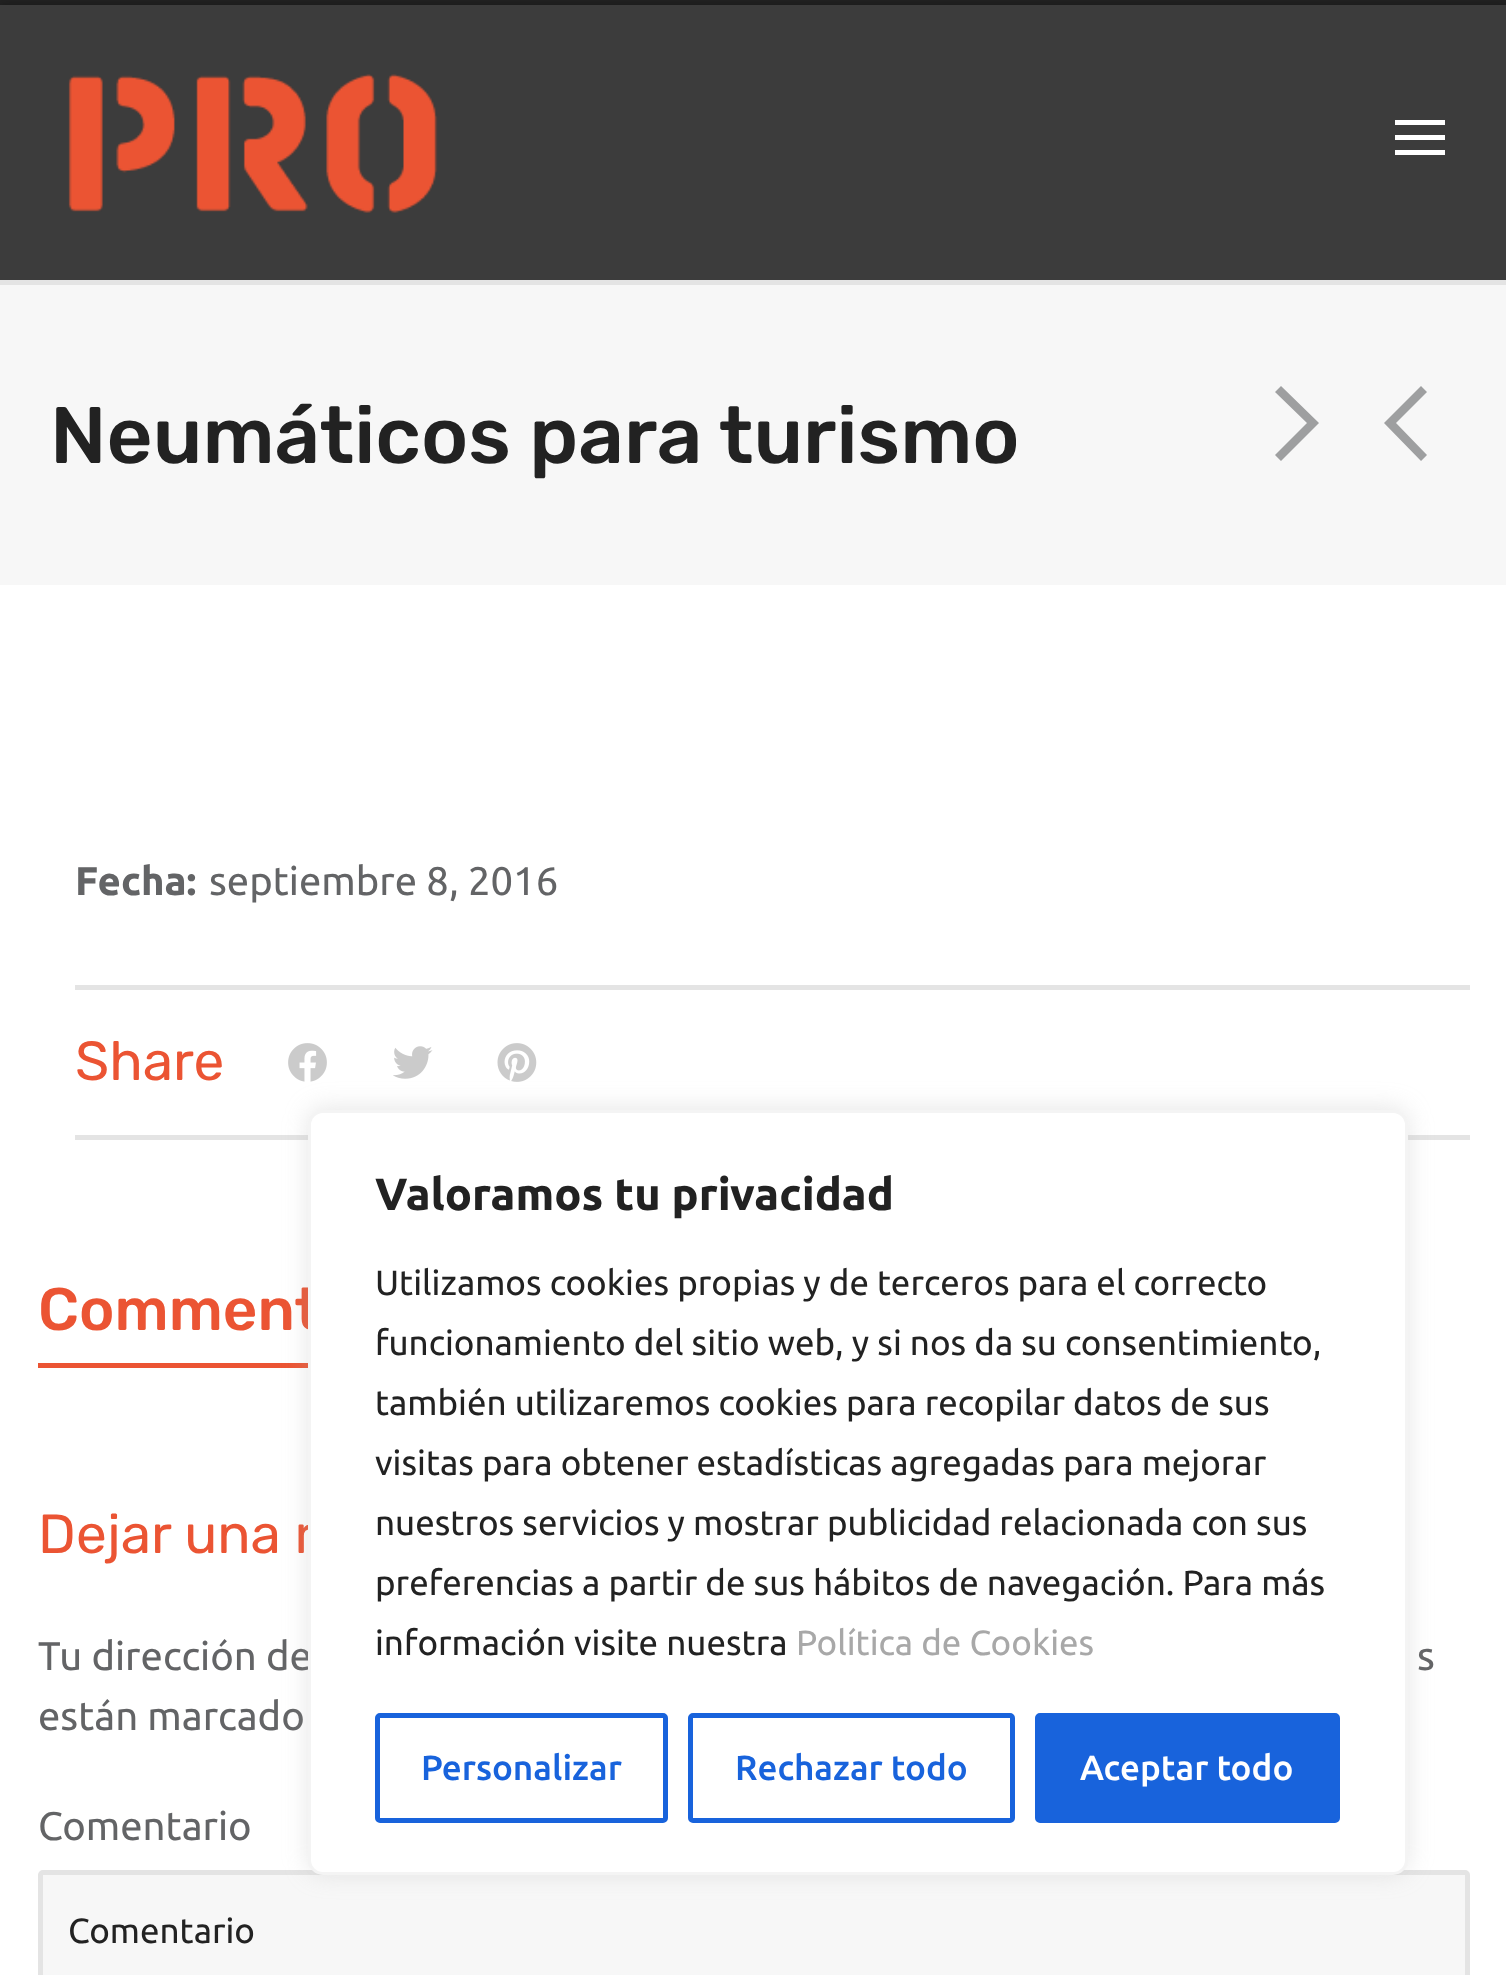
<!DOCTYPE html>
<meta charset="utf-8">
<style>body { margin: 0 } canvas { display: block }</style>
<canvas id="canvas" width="1506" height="1975"></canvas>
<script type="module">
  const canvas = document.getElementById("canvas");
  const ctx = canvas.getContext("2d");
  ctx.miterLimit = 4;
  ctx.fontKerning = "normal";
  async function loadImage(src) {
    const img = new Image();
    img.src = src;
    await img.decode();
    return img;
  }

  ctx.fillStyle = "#222222";
  ctx.fillRect(0, 0, 1506, 1975);
  ctx.fillStyle = "rgba(0, 0, 0, 0.3)";
  ctx.filter = "blur(5px)";
  ctx.beginPath();
  ctx.rect(0, 5, 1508, 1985);
  ctx.fill();
  ctx.filter = "none";
  ctx.fillStyle = "#3c3c3c";
  ctx.fillRect(0, 5, 1506, 275);
  ctx.fillStyle = "#e4e4e4";
  ctx.fillRect(0, 280, 1506, 5);
  ctx.drawImage(await loadImage("img1.png"), 68, 74, 370, 139);
  ctx.fillStyle = "#ffffff";
  ctx.fillRect(1395, 135, 50, 5);
  ctx.fillRect(1395, 120, 50, 5);
  ctx.fillRect(1395, 150, 50, 5);
  ctx.fillRect(0, 585, 1506, 1390);
  ctx.fillStyle = "#f7f7f7";
  ctx.fillRect(0, 285, 1506, 300);
  ctx.font = "500 80px Rubik";
  ctx.fillStyle = "#222222";
  ctx.fillText("Neumáticos para turismo", 50, 463);
  ctx.fillStyle = "#9e9fa0";
  ctx.beginPath();
  ctx.moveTo(1281, 386);
  ctx.lineTo(1275, 392);
  ctx.lineTo(1307, 423);
  ctx.lineTo(1275, 455);
  ctx.lineTo(1281, 461);
  ctx.lineTo(1319, 423);
  ctx.closePath();
  ctx.fill();
  ctx.beginPath();
  ctx.moveTo(1421, 386);
  ctx.lineTo(1427, 392);
  ctx.lineTo(1396, 423);
  ctx.lineTo(1427, 455);
  ctx.lineTo(1421, 461);
  ctx.lineTo(1384, 423);
  ctx.closePath();
  ctx.fill();
  ctx.font = "bold 40px Ubuntu";
  ctx.fillStyle = "#636466";
  ctx.fillText("Fecha:", 75, 895);
  ctx.font = "40px Ubuntu";
  ctx.fillText("septiembre 8, 2016", 209, 895);
  ctx.fillStyle = "#e4e4e4";
  ctx.fillRect(75, 985, 1395, 5);
  ctx.fillRect(75, 1135, 1395, 5);
  ctx.font = "55px Rubik";
  ctx.fillStyle = "#eb5433";
  ctx.fillText("Share", 75, 1080);
  ctx.drawImage(await loadImage("img2.png"), 288, 1043, 39, 39);
  ctx.drawImage(await loadImage("img3.png"), 393, 1046, 40, 33);
  ctx.drawImage(await loadImage("img4.png"), 497, 1043, 40, 39);
  ctx.fillRect(38, 1363, 270, 5);
  ctx.font = "500 60px Rubik";
  ctx.fillText("Comment", 38, 1330);
  ctx.font = "55px Rubik";
  ctx.fillText("Dejar una r", 38, 1553);
  ctx.font = "40px Ubuntu";
  ctx.fillStyle = "#636466";
  ctx.fillText("Tu dirección de", 38, 1670);
  ctx.fillText("s", 1417, 1670);
  ctx.fillText("están marcado", 38, 1730);
  ctx.fillText("Comentario", 38, 1840);
  ctx.fillStyle = "#f7f7f7";
  ctx.fillRect(43, 1875, 1422, 100);
  ctx.beginPath();
  ctx.roundRect(40.5, 1872.5, 1427, 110, 2.5);
  ctx.strokeStyle = "#e4e4e4";
  ctx.lineWidth = 5;
  ctx.stroke();
  ctx.font = "35px Ubuntu";
  ctx.fillStyle = "#222222";
  ctx.fillText("Comentario", 68, 1943);
  ctx.fillStyle = "rgba(172, 171, 171, 0.3)";
  ctx.filter = "blur(12.5px)";
  ctx.beginPath();
  ctx.roundRect(308, 1108, 1100, 765, 15);
  ctx.fill();
  ctx.filter = "none";
  ctx.fillStyle = "#ffffff";
  ctx.beginPath();
  ctx.roundRect(309.5, 1111.5, 1097, 762, 13.5);
  ctx.fill();
  ctx.strokeStyle = "#f4f4f4";
  ctx.lineWidth = 3;
  ctx.stroke();
  ctx.font = "bold 45px Ubuntu";
  ctx.fillStyle = "#222222";
  ctx.fillText("Valoramos tu privacidad", 375, 1210);
  ctx.font = "35px Ubuntu";
  ctx.fillText("Utilizamos cookies propias y de terceros para el correcto", 375, 1295);
  ctx.fillText("funcionamiento del sitio web, y si nos da su consentimiento,", 375, 1355);
  ctx.fillText("también utilizaremos cookies para recopilar datos de sus", 375, 1415);
  ctx.fillText("visitas para obtener estadísticas agregadas para mejorar", 375, 1475);
  ctx.fillText("nuestros servicios y mostrar publicidad relacionada con sus", 375, 1535);
  ctx.fillText("preferencias a partir de sus hábitos de navegación. Para más", 375, 1595);
  ctx.fillText("información visite nuestra", 375, 1655);
  ctx.fillStyle = "#a8a8a8";
  ctx.fillText("Política de Cookies", 796, 1655);
  ctx.beginPath();
  ctx.roundRect(377.5, 1715.5, 288, 105, 2.5);
  ctx.strokeStyle = "#1863dc";
  ctx.lineWidth = 5;
  ctx.stroke();
  ctx.font = "500 35px Ubuntu";
  ctx.fillStyle = "#1863dc";
  ctx.fillText("Personalizar", 421, 1780);
  ctx.beginPath();
  ctx.roundRect(690.5, 1715.5, 322, 105, 2.5);
  ctx.stroke();
  ctx.fillText("Rechazar todo", 735, 1780);
  ctx.beginPath();
  ctx.roundRect(1037.5, 1715.5, 300, 105, 2.5);
  ctx.fill();
  ctx.stroke();
  ctx.fillStyle = "#ffffff";
  ctx.fillText("Aceptar todo", 1080, 1780);
</script>
